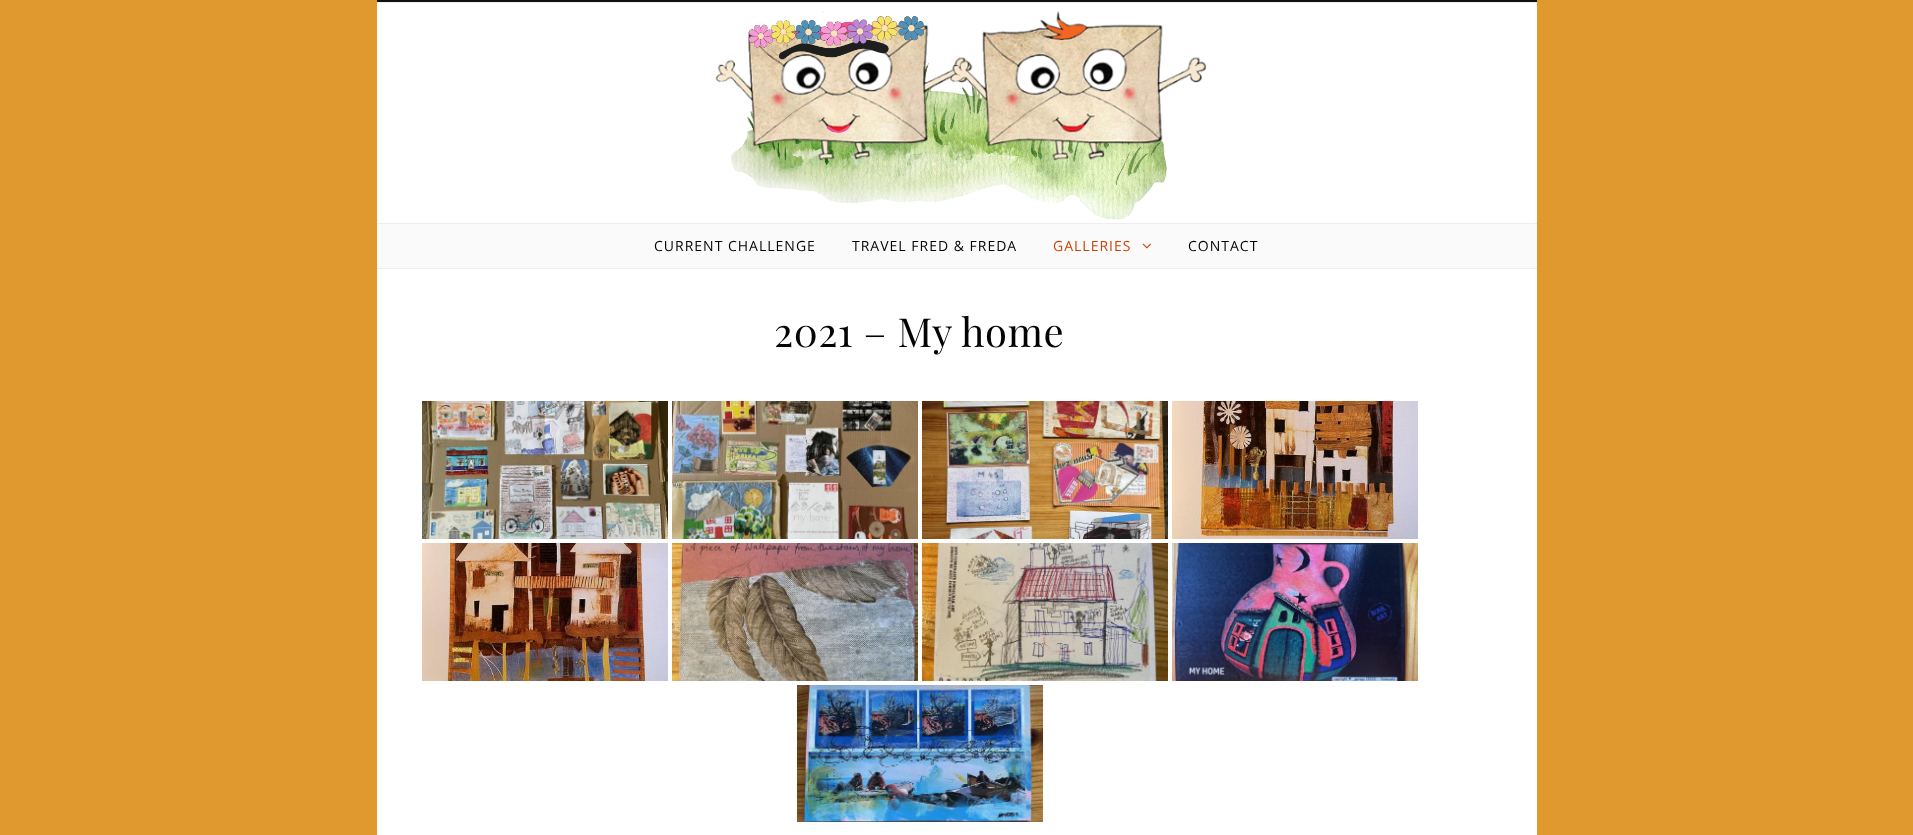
<!DOCTYPE html>
<meta charset="utf-8">
<style>body { margin: 0 } canvas { display: block }</style>
<canvas id="canvas" width="1913" height="835"></canvas>
<script type="module">
  const canvas = document.getElementById("canvas");
  const ctx = canvas.getContext("2d");
  ctx.miterLimit = 4;
  ctx.fontKerning = "normal";
  async function loadImage(src) {
    const img = new Image();
    img.src = src;
    await img.decode();
    return img;
  }

  ctx.fillStyle = "#e0992f";
  ctx.fillRect(0, 0, 1913, 835);
  ctx.fillStyle = "#111111";
  ctx.fillRect(377, 0, 1160, 2);
  ctx.fillStyle = "#eeeeee";
  ctx.fillRect(377, 2, 1160, 1);
  ctx.fillStyle = "#ffffff";
  ctx.fillRect(377, 3, 1160, 220);
  ctx.drawImage(await loadImage("img1.png"), 715, 11, 491, 209);
  ctx.fillStyle = "#fafafa";
  ctx.fillRect(377, 224, 1160, 44);
  ctx.fillStyle = "#eeeeee";
  ctx.fillRect(377, 223, 1160, 1);
  ctx.fillRect(377, 268, 1160, 1);
  ctx.letterSpacing = "1px";
  ctx.font = "14px Open Sans";
  ctx.fillStyle = "#030303";
  ctx.fillText("CURRENT CHALLENGE", 654, 251);
  ctx.fillText("TRAVEL FRED & FREDA", 852, 251);
  ctx.fillStyle = "#ce4206";
  ctx.fillText("GALLERIES", 1053, 251);
  ctx.drawImage(await loadImage("img2.png"), 1142, 243, 9, 6);
  ctx.fillStyle = "#030303";
  ctx.fillText("CONTACT", 1188, 251);
  ctx.fillStyle = "#ffffff";
  ctx.fillRect(377, 269, 1160, 566);
  ctx.letterSpacing = "0.5px";
  ctx.font = "40px Playfair Display";
  ctx.fillStyle = "#030303";
  ctx.fillText("2021 – My home", 774, 347);
  ctx.drawImage(await loadImage("img3.png"), 422, 401, 246, 138);
  ctx.drawImage(await loadImage("img4.png"), 672, 401, 246, 138);
  ctx.drawImage(await loadImage("img5.png"), 922, 401, 246, 138);
  ctx.drawImage(await loadImage("img6.png"), 1172, 401, 246, 138);
  ctx.drawImage(await loadImage("img7.png"), 422, 543, 246, 138);
  ctx.drawImage(await loadImage("img8.png"), 672, 543, 246, 138);
  ctx.drawImage(await loadImage("img9.png"), 922, 543, 246, 138);
  ctx.drawImage(await loadImage("img10.png"), 1172, 543, 246, 138);
  ctx.drawImage(await loadImage("img11.png"), 797, 685, 246, 137);
</script>
